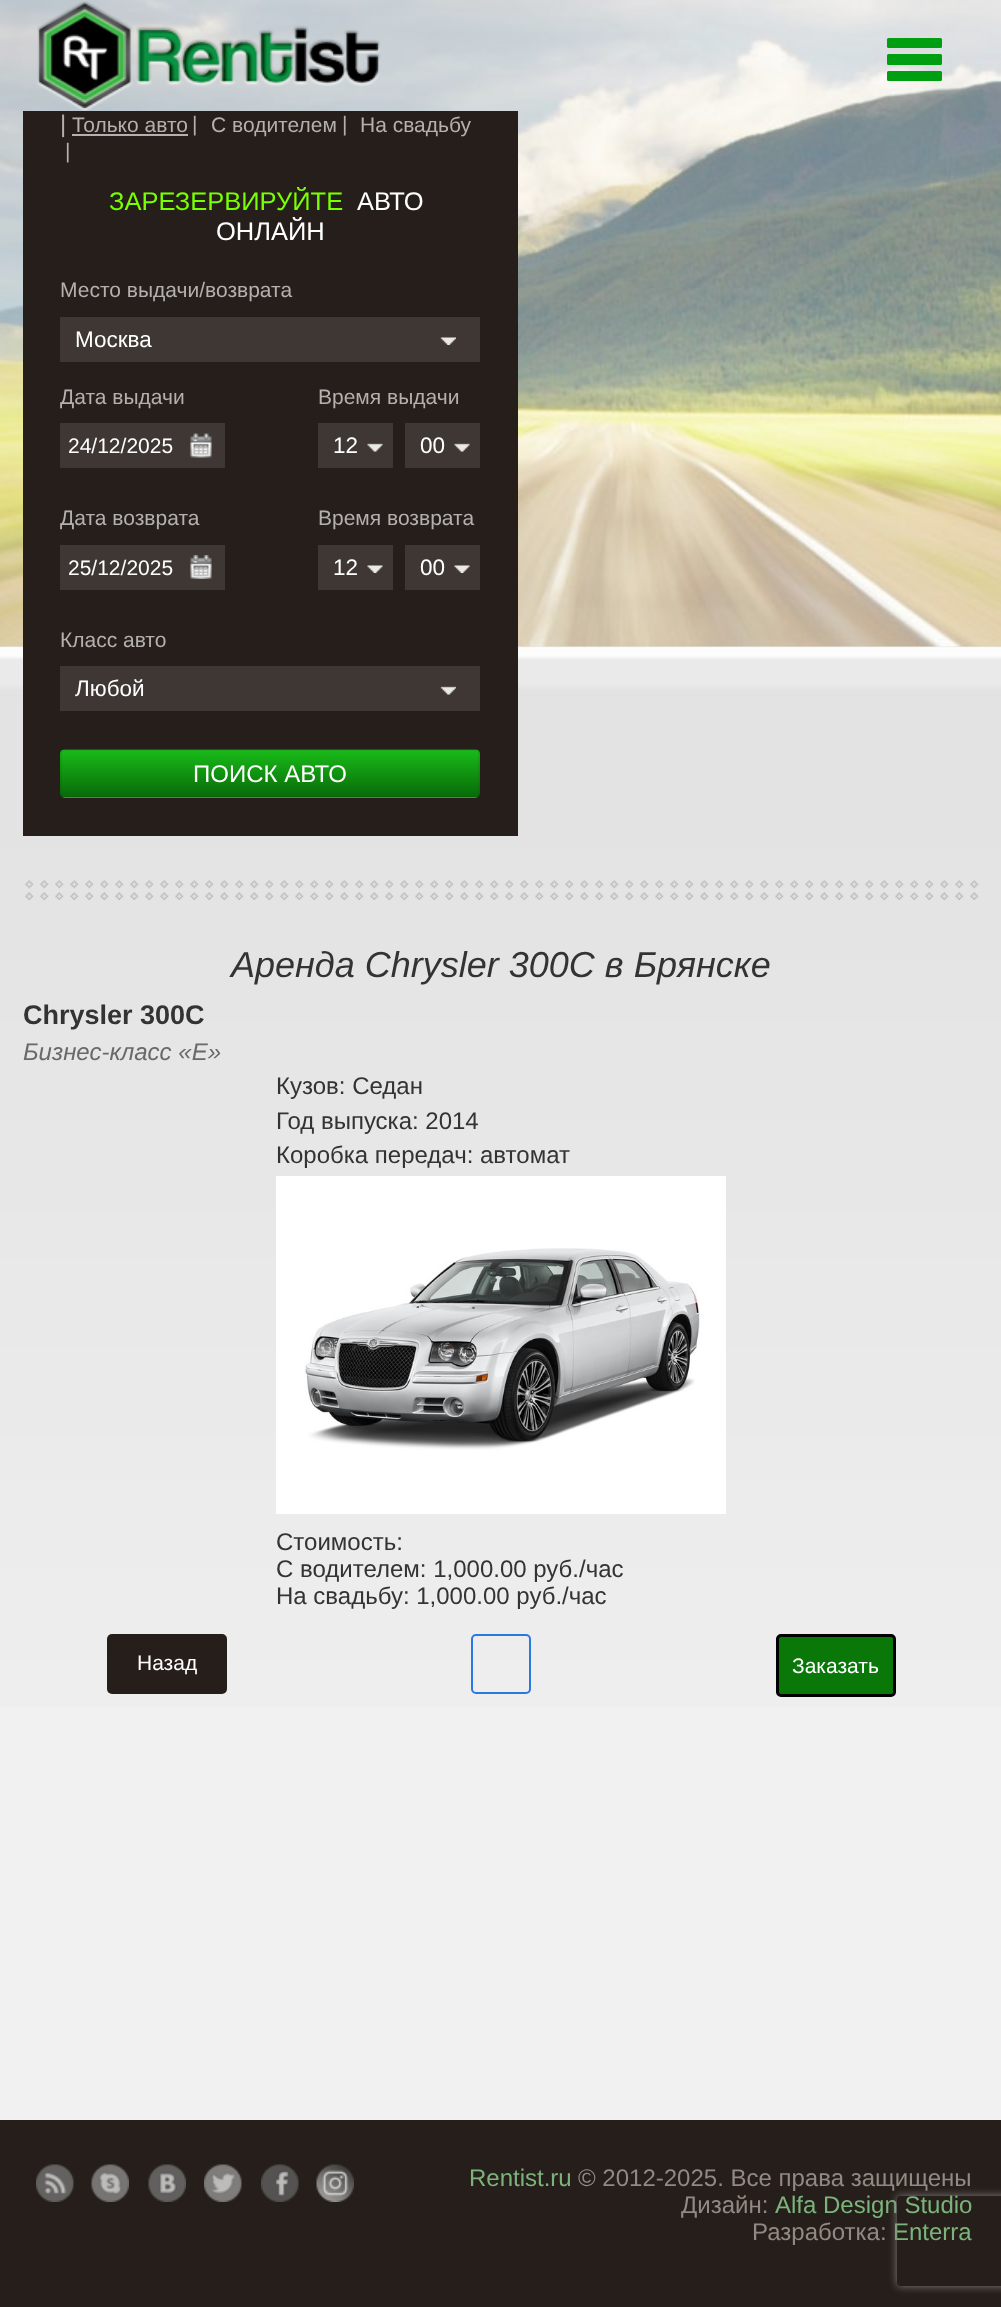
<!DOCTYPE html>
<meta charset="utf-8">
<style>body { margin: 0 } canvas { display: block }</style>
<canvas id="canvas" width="1001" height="2307"></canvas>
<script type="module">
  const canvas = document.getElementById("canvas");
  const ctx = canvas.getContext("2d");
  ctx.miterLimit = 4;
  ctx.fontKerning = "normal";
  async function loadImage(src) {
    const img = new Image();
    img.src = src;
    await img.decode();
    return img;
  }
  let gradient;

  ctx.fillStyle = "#e8e8e8";
  ctx.fillRect(0, 0, 1001, 2307);
  ctx.drawImage(await loadImage("img1.png"), 0, 647, 1001, 1060);
  ctx.fillStyle = "#d8d8d8";
  ctx.fillRect(0, 646, 1001, 1);
  ctx.drawImage(await loadImage("img2.png"), 0, 0, 1001, 647);
  ctx.save();
  ctx.beginPath();
  ctx.moveTo(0, 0);
  ctx.lineTo(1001, 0);
  ctx.lineTo(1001, 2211);
  ctx.lineTo(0, 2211);
  ctx.closePath();
  ctx.moveTo(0, 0);
  ctx.lineTo(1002, 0);
  ctx.lineTo(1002, 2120);
  ctx.lineTo(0, 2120);
  ctx.closePath();
  ctx.clip("evenodd");
  ctx.fillStyle = "rgba(50, 50, 50, 0.75)";
  ctx.filter = "blur(30px)";
  ctx.beginPath();
  ctx.rect(0, 0, 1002, 2120);
  ctx.fill();
  ctx.filter = "none";
  ctx.restore();
  ctx.fillStyle = "rgba(255, 255, 255, 0.4)";
  ctx.fillRect(0, 0, 1001, 2120);
  ctx.drawImage(await loadImage("img3.png"), 37, 1, 344, 110);
  ctx.fillStyle = "#009e11";
  ctx.beginPath();
  ctx.roundRect(887, 38, 55, 10, 1.5);
  ctx.fill();
  ctx.beginPath();
  ctx.roundRect(887, 54, 55, 11, 1.5);
  ctx.fill();
  ctx.beginPath();
  ctx.roundRect(887, 71, 55, 10, 1.5);
  ctx.fill();
  ctx.fillStyle = "#261e1a";
  ctx.fillRect(23, 111, 495, 725);
  ctx.font = "24px Liberation Sans";
  ctx.fillStyle = "#b3b0af";
  ctx.fillText("|", 60, 132);
  ctx.font = "21px Liberation Sans";
  ctx.fillText("Только авто", 72, 132);
  ctx.fillRect(72, 134, 116, 2);
  ctx.fillText("|", 192, 131);
  ctx.fillText("С водителем", 211, 132);
  ctx.fillText("|", 342, 131);
  ctx.fillText("На свадьбу", 360, 132);
  ctx.fillText("|", 65, 158);
  ctx.font = "25.5px Liberation Sans";
  ctx.fillStyle = "#78ff00";
  ctx.fillText("ЗАРЕЗЕРВИРУЙТЕ", 109, 210);
  ctx.fillStyle = "#ffffff";
  ctx.fillText("АВТО", 357, 210);
  ctx.fillText("ОНЛАЙН", 216, 240);
  ctx.font = "21px Liberation Sans";
  ctx.fillStyle = "#b3b0af";
  ctx.fillText("Место выдачи/возврата", 60, 297);
  ctx.fillStyle = "#3e3733";
  ctx.fillRect(60, 317, 420, 45);
  ctx.drawImage(await loadImage("img4.png"), 440, 337, 16, 8);
  ctx.font = "22.5px Liberation Sans";
  ctx.fillStyle = "#ffffff";
  ctx.fillText("Москва", 75, 347);
  ctx.font = "21px Liberation Sans";
  ctx.fillStyle = "#b3b0af";
  ctx.fillText("Дата выдачи", 60, 404);
  ctx.fillStyle = "#3e3733";
  ctx.fillRect(60, 423, 165, 45);
  ctx.drawImage(await loadImage("img5.png"), 190, 433, 22, 25);
  ctx.fillStyle = "#ffffff";
  ctx.fillText("24/12/2025", 68, 453);
  ctx.fillStyle = "#b3b0af";
  ctx.fillText("Дата возврата", 60, 525);
  ctx.fillStyle = "#3e3733";
  ctx.fillRect(60, 545, 165, 45);
  ctx.drawImage(await loadImage("img6.png"), 190, 555, 22, 24);
  ctx.fillStyle = "#ffffff";
  ctx.fillText("25/12/2025", 68, 575);
  ctx.fillStyle = "#b3b0af";
  ctx.fillText("Время выдачи", 318, 404);
  ctx.fillStyle = "#3e3733";
  ctx.fillRect(318, 423, 75, 45);
  ctx.drawImage(await loadImage("img7.png"), 367, 443, 16, 9);
  ctx.font = "22.5px Liberation Sans";
  ctx.fillStyle = "#ffffff";
  ctx.fillText("12", 333, 453);
  ctx.fillStyle = "#3e3733";
  ctx.fillRect(405, 423, 75, 45);
  ctx.drawImage(await loadImage("img7.png"), 454, 443, 16, 9);
  ctx.fillStyle = "#ffffff";
  ctx.fillText("00", 420, 453);
  ctx.font = "21px Liberation Sans";
  ctx.fillStyle = "#b3b0af";
  ctx.fillText("Время возврата", 318, 525);
  ctx.fillStyle = "#3e3733";
  ctx.fillRect(318, 545, 75, 45);
  ctx.drawImage(await loadImage("img8.png"), 367, 565, 16, 8);
  ctx.font = "22.5px Liberation Sans";
  ctx.fillStyle = "#ffffff";
  ctx.fillText("12", 333, 575);
  ctx.fillStyle = "#3e3733";
  ctx.fillRect(405, 545, 75, 45);
  ctx.drawImage(await loadImage("img8.png"), 454, 565, 16, 8);
  ctx.fillStyle = "#ffffff";
  ctx.fillText("00", 420, 575);
  ctx.font = "21px Liberation Sans";
  ctx.fillStyle = "#b3b0af";
  ctx.fillText("Класс авто", 60, 647);
  ctx.fillStyle = "#3e3733";
  ctx.fillRect(60, 666, 420, 45);
  ctx.drawImage(await loadImage("img9.png"), 440, 686, 16, 9);
  ctx.font = "22.5px Liberation Sans";
  ctx.fillStyle = "#ffffff";
  ctx.fillText("Любой", 75, 696);
  ctx.save();
  ctx.beginPath();
  ctx.roundRect(60, 749, 420, 49, 5);
  ctx.clip();
  gradient = ctx.createLinearGradient(62, 750, 62, 704);
  gradient.addColorStop(0, "#086a08");
  gradient.addColorStop(1, "#19bb19");
  ctx.fillStyle = gradient;
  ctx.fillRect(60, 749, 420, 1);
  gradient = ctx.createLinearGradient(62, 797, 62, 750);
  gradient.addColorStop(0, "#086a08");
  gradient.addColorStop(1, "#19bb19");
  ctx.fillStyle = gradient;
  ctx.fillRect(60, 750, 420, 47);
  gradient = ctx.createLinearGradient(62, 843, 62, 797);
  gradient.addColorStop(0, "#086a08");
  gradient.addColorStop(1, "#19bb19");
  ctx.fillStyle = gradient;
  ctx.fillRect(60, 797, 420, 1);
  ctx.restore();
  ctx.beginPath();
  ctx.roundRect(61, 750, 418, 47, 4);
  ctx.strokeStyle = "rgba(11, 60, 11, 0.1)";
  ctx.lineWidth = 2;
  ctx.stroke();
  ctx.font = "24px Liberation Sans";
  ctx.fillText("ПОИСК АВТО", 193, 782);
  ctx.drawImage(await loadImage("img10.png"), 25, 880, 954, 20);
  ctx.font = "italic 36px Liberation Sans";
  ctx.fillStyle = "#333333";
  ctx.fillText("Аренда Chrysler 300C в Брянске", 231, 977);
  ctx.font = "bold 27px Liberation Sans";
  ctx.fillText("Chrysler 300C", 23, 1024);
  ctx.font = "italic 24px Liberation Sans";
  ctx.fillStyle = "#696969";
  ctx.fillText("Бизнес-класс «E»", 23, 1060);
  ctx.font = "24px Liberation Sans";
  ctx.fillStyle = "#333333";
  ctx.fillText("Кузов: Седан", 276, 1094);
  ctx.fillText("Год выпуска: 2014", 276, 1129);
  ctx.fillText("Коробка передач: автомат", 276, 1163);
  ctx.fillStyle = "#ffffff";
  ctx.fillRect(276, 1176, 450, 338);
  ctx.drawImage(await loadImage("img11.png"), 304, 1248, 398, 202);
  ctx.fillStyle = "#333333";
  ctx.fillText("Стоимость:", 276, 1550);
  ctx.fillText("С водителем: 1,000.00 руб./час", 276, 1577);
  ctx.fillText("На свадьбу: 1,000.00 руб./час", 276, 1604);
  ctx.fillStyle = "#261e1a";
  ctx.beginPath();
  ctx.roundRect(107, 1634, 120, 60, 5);
  ctx.fill();
  ctx.font = "21px Liberation Sans";
  ctx.fillStyle = "#ffffff";
  ctx.fillText("Назад", 137, 1670);
  ctx.beginPath();
  ctx.roundRect(472, 1635, 58, 58, 4);
  ctx.strokeStyle = "#2a78e4";
  ctx.stroke();
  ctx.fillStyle = "#097809";
  ctx.beginPath();
  ctx.roundRect(777.5, 1635.5, 117, 60, 3.5);
  ctx.fill();
  ctx.strokeStyle = "#000000";
  ctx.lineWidth = 3;
  ctx.stroke();
  ctx.fillStyle = "#ffffff";
  ctx.fillText("Заказать", 792, 1673);
  ctx.fillStyle = "#261e1a";
  ctx.fillRect(0, 2120, 1001, 187);
  ctx.drawImage(await loadImage("img12.png"), 36, 2164, 38, 38);
  ctx.drawImage(await loadImage("img13.png"), 91, 2164, 38, 38);
  ctx.drawImage(await loadImage("img14.png"), 148, 2164, 38, 38);
  ctx.drawImage(await loadImage("img15.png"), 204, 2164, 38, 38);
  ctx.drawImage(await loadImage("img16.png"), 261, 2164, 38, 38);
  ctx.drawImage(await loadImage("img17.png"), 316, 2164, 38, 38);
  ctx.font = "24px Liberation Sans";
  ctx.fillStyle = "#7bb47b";
  ctx.fillText("Rentist.ru", 469, 2186);
  ctx.fillStyle = "#918984";
  ctx.fillText("© 2012-2025. Все права защищены", 578, 2186);
  ctx.fillText("Дизайн:", 681, 2213);
  ctx.fillStyle = "#7bb47b";
  ctx.fillText("Alfa Design Studio", 775, 2213);
  ctx.fillStyle = "#918984";
  ctx.fillText("Разработка:", 752, 2240);
  ctx.fillStyle = "#7bb47b";
  ctx.fillText("Enterra", 893, 2240);
  ctx.save();
  ctx.beginPath();
  ctx.moveTo(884, 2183);
  ctx.lineTo(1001, 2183);
  ctx.lineTo(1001, 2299);
  ctx.lineTo(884, 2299);
  ctx.closePath();
  ctx.moveTo(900, 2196);
  ctx.lineTo(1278, 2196);
  ctx.bezierCurveTo(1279.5, 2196, 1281, 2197.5, 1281, 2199);
  ctx.lineTo(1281, 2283);
  ctx.bezierCurveTo(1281, 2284.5, 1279.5, 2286, 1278, 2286);
  ctx.lineTo(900, 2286);
  ctx.bezierCurveTo(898.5, 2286, 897, 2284.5, 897, 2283);
  ctx.lineTo(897, 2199);
  ctx.bezierCurveTo(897, 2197.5, 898.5, 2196, 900, 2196);
  ctx.closePath();
  ctx.clip("evenodd");
  ctx.fillStyle = "#808080";
  ctx.filter = "blur(4px)";
  ctx.beginPath();
  ctx.roundRect(897, 2196, 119, 90, 3);
  ctx.fill();
  ctx.filter = "none";
  ctx.restore();
</script>
